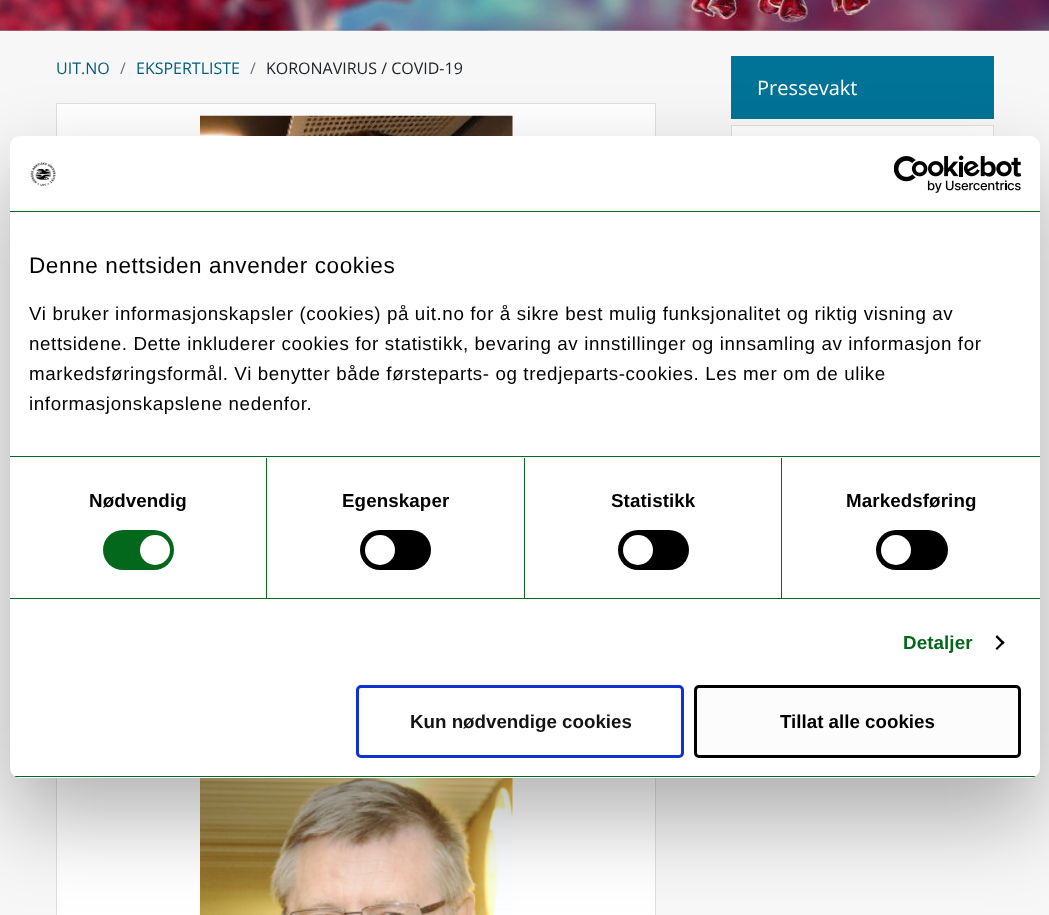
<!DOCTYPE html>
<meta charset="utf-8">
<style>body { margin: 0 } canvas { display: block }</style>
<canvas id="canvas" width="1049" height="915"></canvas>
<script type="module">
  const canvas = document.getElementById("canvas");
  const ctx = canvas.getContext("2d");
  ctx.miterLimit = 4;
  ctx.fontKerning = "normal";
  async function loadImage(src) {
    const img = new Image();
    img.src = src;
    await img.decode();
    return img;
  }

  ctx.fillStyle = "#f7f7f7";
  ctx.fillRect(0, 0, 1049, 915);
  ctx.drawImage(await loadImage("img1.png"), 0, 0, 1049, 31);
  ctx.font = "16px Open Sans";
  ctx.fillStyle = "#005e7a";
  ctx.fillText("UIT.NO", 56, 74);
  ctx.fillStyle = "#6c757d";
  ctx.fillText("/", 120, 74);
  ctx.fillStyle = "#005e7a";
  ctx.fillText("EKSPERTLISTE", 136, 74);
  ctx.fillStyle = "#6c757d";
  ctx.fillText("/", 250, 74);
  ctx.fillStyle = "#212529";
  ctx.fillText("KORONAVIRUS / COVID-19", 266, 74);
  ctx.fillStyle = "#ffffff";
  ctx.fillRect(57, 104, 598, 32);
  ctx.strokeStyle = "#dfdfdf";
  ctx.strokeRect(56.5, 103.5, 599, 640);
  ctx.drawImage(await loadImage("img2.png"), 200, 115, 313, 21);
  ctx.fillRect(57, 778, 598, 137);
  ctx.strokeRect(56.5, 756.5, 599, 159);
  ctx.drawImage(await loadImage("img3.png"), 200, 778, 313, 137);
  ctx.fillStyle = "#007396";
  ctx.fillRect(731, 56, 263, 63);
  ctx.font = "20px Open Sans";
  ctx.fillStyle = "#ffffff";
  ctx.fillText("Pressevakt", 757, 95);
  ctx.fillRect(732, 126, 261, 10);
  ctx.strokeRect(731.5, 125.5, 262, 122);
  ctx.fillStyle = "rgba(0, 0, 0, 0.3)";
  ctx.filter = "blur(42.5px)";
  ctx.beginPath();
  ctx.roundRect(10, 176, 1030, 642, 10);
  ctx.fill();
  ctx.filter = "none";
  ctx.fillStyle = "#ffffff";
  ctx.beginPath();
  ctx.roundRect(10, 136, 1030, 642, 10);
  ctx.fill();
  ctx.fillStyle = "#03681b";
  ctx.fillRect(10, 211, 1030, 1);
  ctx.drawImage(await loadImage("img4.png"), 30, 162, 26, 25);
  ctx.drawImage(await loadImage("img5.png"), 894, 155, 127, 38);
  ctx.fillRect(10, 456, 1030, 1);
  ctx.letterSpacing = "0.62px";
  ctx.font = "22.5px Liberation Sans";
  ctx.fillStyle = "#000000";
  ctx.fillText("Denne nettsiden anvender cookies", 29, 273);
  ctx.font = "18.75px Liberation Sans";
  ctx.fillText("Vi bruker informasjonskapsler (cookies) på uit.no for å sikre best mulig funksjonalitet og riktig visning av", 29, 320);
  ctx.fillText("nettsidene. Dette inkluderer cookies for statistikk, bevaring av innstillinger og innsamling av informasjon for", 29, 350);
  ctx.fillText("markedsføringsformål. Vi benytter både førsteparts- og tredjeparts-cookies. Les mer om de ulike", 29, 380);
  ctx.fillText("informasjonskapslene nedenfor.", 29, 410);
  ctx.fillStyle = "#03681b";
  ctx.fillRect(10, 598, 1030, 1);
  ctx.fillRect(266, 458, 1, 140);
  ctx.letterSpacing = "0.1px";
  ctx.font = "bold 18.75px Liberation Sans";
  ctx.fillStyle = "#000000";
  ctx.fillText("Nødvendig", 89, 507);
  ctx.fillStyle = "#03681b";
  ctx.beginPath();
  ctx.roundRect(103, 530, 71, 40, 20);
  ctx.fill();
  ctx.fillStyle = "#ffffff";
  ctx.beginPath();
  ctx.arc(155, 550, 15, 0, Math.PI * 2);
  ctx.fill();
  ctx.fillStyle = "#03681b";
  ctx.fillRect(524, 458, 1, 140);
  ctx.fillStyle = "#000000";
  ctx.fillText("Egenskaper", 342, 507);
  ctx.beginPath();
  ctx.roundRect(360, 530, 71, 40, 20);
  ctx.fill();
  ctx.fillStyle = "#ffffff";
  ctx.beginPath();
  ctx.arc(380, 550, 15, 0, Math.PI * 2);
  ctx.fill();
  ctx.fillStyle = "#03681b";
  ctx.fillRect(781, 458, 1, 140);
  ctx.fillStyle = "#000000";
  ctx.fillText("Statistikk", 611, 507);
  ctx.beginPath();
  ctx.roundRect(618, 530, 71, 40, 20);
  ctx.fill();
  ctx.fillStyle = "#ffffff";
  ctx.beginPath();
  ctx.arc(638, 550, 15, 0, Math.PI * 2);
  ctx.fill();
  ctx.fillStyle = "#000000";
  ctx.fillText("Markedsføring", 846, 507);
  ctx.beginPath();
  ctx.roundRect(876, 530, 72, 40, 20);
  ctx.fill();
  ctx.fillStyle = "#ffffff";
  ctx.beginPath();
  ctx.arc(896, 550, 15, 0, Math.PI * 2);
  ctx.fill();
  ctx.fillStyle = "#03681b";
  ctx.fillText("Detaljer", 903, 649);
  ctx.fillStyle = "#000000";
  ctx.beginPath();
  ctx.moveTo(997, 635);
  ctx.lineTo(1004.5, 642.5);
  ctx.lineTo(1003, 644.5);
  ctx.lineTo(995.5, 637);
  ctx.closePath();
  ctx.fill();
  ctx.beginPath();
  ctx.moveTo(1003, 641);
  ctx.lineTo(1004.5, 642.5);
  ctx.lineTo(997, 650);
  ctx.lineTo(995.5, 648.5);
  ctx.closePath();
  ctx.fill();
  ctx.save();
  ctx.beginPath();
  ctx.roundRect(10, 136, 1030, 642, 10);
  ctx.clip();
  ctx.fillStyle = "#03681b";
  ctx.fillRect(10, 776, 1030, 1);
  ctx.restore();
  ctx.beginPath();
  ctx.roundRect(357.5, 686.5, 325, 70, 3.5);
  ctx.strokeStyle = "#1032cf";
  ctx.lineWidth = 3;
  ctx.stroke();
  ctx.letterSpacing = "0px";
  ctx.fillStyle = "#141414";
  ctx.fillText("Kun nødvendige cookies", 410, 728);
  ctx.fillStyle = "#fcfcfc";
  ctx.beginPath();
  ctx.roundRect(695.5, 686.5, 324, 70, 3.5);
  ctx.fill();
  ctx.strokeStyle = "#000000";
  ctx.stroke();
  ctx.fillStyle = "#000000";
  ctx.fillText("Tillat alle cookies", 780, 728);
</script>
